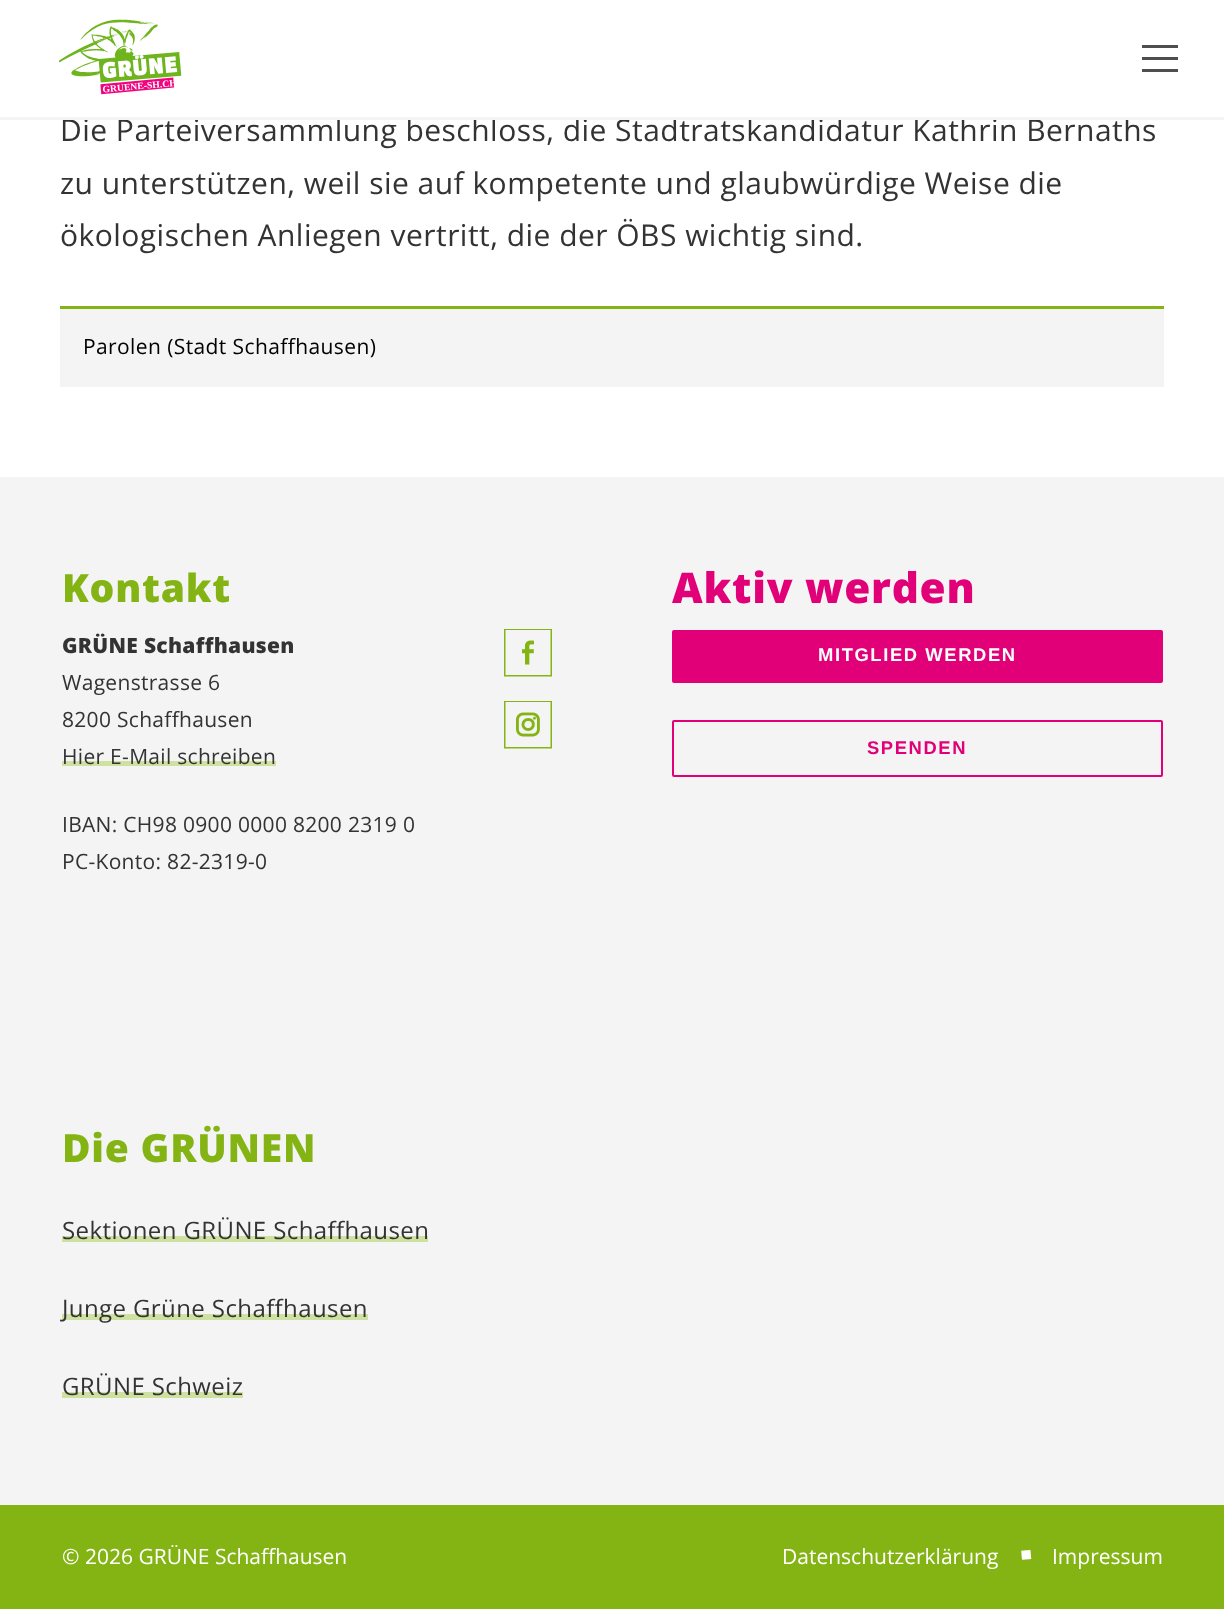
<!DOCTYPE html>
<meta charset="utf-8">
<style>body { margin: 0 } canvas { display: block }</style>
<canvas id="canvas" width="1224" height="1609"></canvas>
<script type="module">
  const canvas = document.getElementById("canvas");
  const ctx = canvas.getContext("2d");
  ctx.miterLimit = 4;
  ctx.fontKerning = "normal";
  async function loadImage(src) {
    const img = new Image();
    img.src = src;
    await img.decode();
    return img;
  }

  ctx.fillStyle = "#ffffff";
  ctx.fillRect(0, 0, 1224, 1609);
  ctx.letterSpacing = "0.47px";
  ctx.font = "30px Open Sans";
  ctx.fillStyle = "#333333";
  ctx.fillText("Die Parteiversammlung beschloss, die Stadtratskandidatur Kathrin Bernaths", 60, 141);
  ctx.fillStyle = "#f4f4f4";
  ctx.fillRect(0, 117, 1224, 3);
  ctx.drawImage(await loadImage("img1.png"), 58, 19, 124, 76);
  ctx.fillStyle = "#4e4e4e";
  ctx.fillRect(1142, 57, 36, 3);
  ctx.fillRect(1142, 45, 36, 3);
  ctx.fillRect(1142, 69, 36, 3);
  ctx.fillStyle = "#333333";
  ctx.fillText("zu unterstützen, weil sie auf kompetente und glaubwürdige Weise die", 60, 194);
  ctx.fillText("ökologischen Anliegen vertritt, die der ÖBS wichtig sind.", 60, 246);
  ctx.fillStyle = "#f4f4f4";
  ctx.fillRect(60, 309, 1104, 78);
  ctx.fillStyle = "#84b414";
  ctx.fillRect(60, 306, 1104, 3);
  ctx.letterSpacing = "0.4px";
  ctx.font = "21px Open Sans";
  ctx.fillStyle = "#000000";
  ctx.fillText("Parolen (Stadt Schaffhausen)", 83, 354);
  ctx.fillStyle = "#f4f4f4";
  ctx.fillRect(0, 477, 1224, 1028);
  ctx.letterSpacing = "0.75px";
  ctx.font = "800 39px Open Sans";
  ctx.fillStyle = "#84b414";
  ctx.fillText("Kontakt", 62, 602);
  ctx.letterSpacing = "0.3px";
  ctx.font = "800 21px Open Sans";
  ctx.fillStyle = "#333333";
  ctx.fillText("GRÜNE Schaffhausen", 62, 653);
  ctx.font = "21px Open Sans";
  ctx.fillText("Wagenstrasse 6", 62, 690);
  ctx.fillText("8200 Schaffhausen", 62, 727);
  ctx.fillStyle = "#cee1a1";
  ctx.fillRect(62, 761, 214, 5);
  ctx.fillStyle = "#333333";
  ctx.fillText("Hier E-Mail schreiben", 62, 764);
  ctx.fillText("IBAN: CH98 0900 0000 8200 2319 0", 62, 832);
  ctx.fillText("PC-Konto: 82-2319-0", 62, 869);
  ctx.drawImage(await loadImage("img2.png"), 504, 629, 48, 48);
  ctx.drawImage(await loadImage("img3.png"), 504, 701, 48, 48);
  ctx.letterSpacing = "0.75px";
  ctx.font = "800 42.25px Open Sans";
  ctx.fillStyle = "#e10078";
  ctx.fillText("Aktiv werden", 672, 603);
  ctx.beginPath();
  ctx.roundRect(672, 630, 491, 53, 2);
  ctx.fill();
  ctx.letterSpacing = "1.6px";
  ctx.font = "bold 18.4px Liberation Sans";
  ctx.fillStyle = "#ffffff";
  ctx.fillText("MITGLIED WERDEN", 818, 661);
  ctx.beginPath();
  ctx.roundRect(673, 721, 489, 55, 1);
  ctx.strokeStyle = "#e10078";
  ctx.lineWidth = 2;
  ctx.stroke();
  ctx.fillStyle = "#e10078";
  ctx.fillText("SPENDEN", 867, 754);
  ctx.letterSpacing = "0.75px";
  ctx.font = "800 39px Open Sans";
  ctx.fillStyle = "#84b414";
  ctx.fillText("Die GRÜNEN", 62, 1162);
  ctx.fillStyle = "#cee1a1";
  ctx.fillRect(62, 1236, 366, 6);
  ctx.letterSpacing = "0.4px";
  ctx.font = "24px Open Sans";
  ctx.fillStyle = "#333333";
  ctx.fillText("Sektionen GRÜNE Schaffhausen", 62, 1239);
  ctx.fillStyle = "#cee1a1";
  ctx.fillRect(62, 1314, 306, 6);
  ctx.fillStyle = "#333333";
  ctx.fillText("Junge Grüne Schaffhausen", 62, 1317);
  ctx.fillStyle = "#cee1a1";
  ctx.fillRect(62, 1392, 181, 6);
  ctx.fillStyle = "#333333";
  ctx.fillText("GRÜNE Schweiz", 62, 1395);
  ctx.fillStyle = "#84b414";
  ctx.fillRect(0, 1505, 1224, 104);
  ctx.letterSpacing = "0px";
  ctx.font = "21px Open Sans";
  ctx.fillStyle = "#ffffff";
  ctx.fillText("© 2026 GRÜNE Schaffhausen", 62, 1564);
  ctx.fillText("Datenschutzerklärung", 782, 1564);
  ctx.font = "19px Liberation Sans";
  ctx.save();
  ctx.translate(1021, 1561);
  ctx.rotate(-5 * Math.PI / 180);
  ctx.fillText("■", 0, 0);
  ctx.restore();
  ctx.font = "21px Open Sans";
  ctx.fillText("Impressum", 1052, 1564);
</script>
